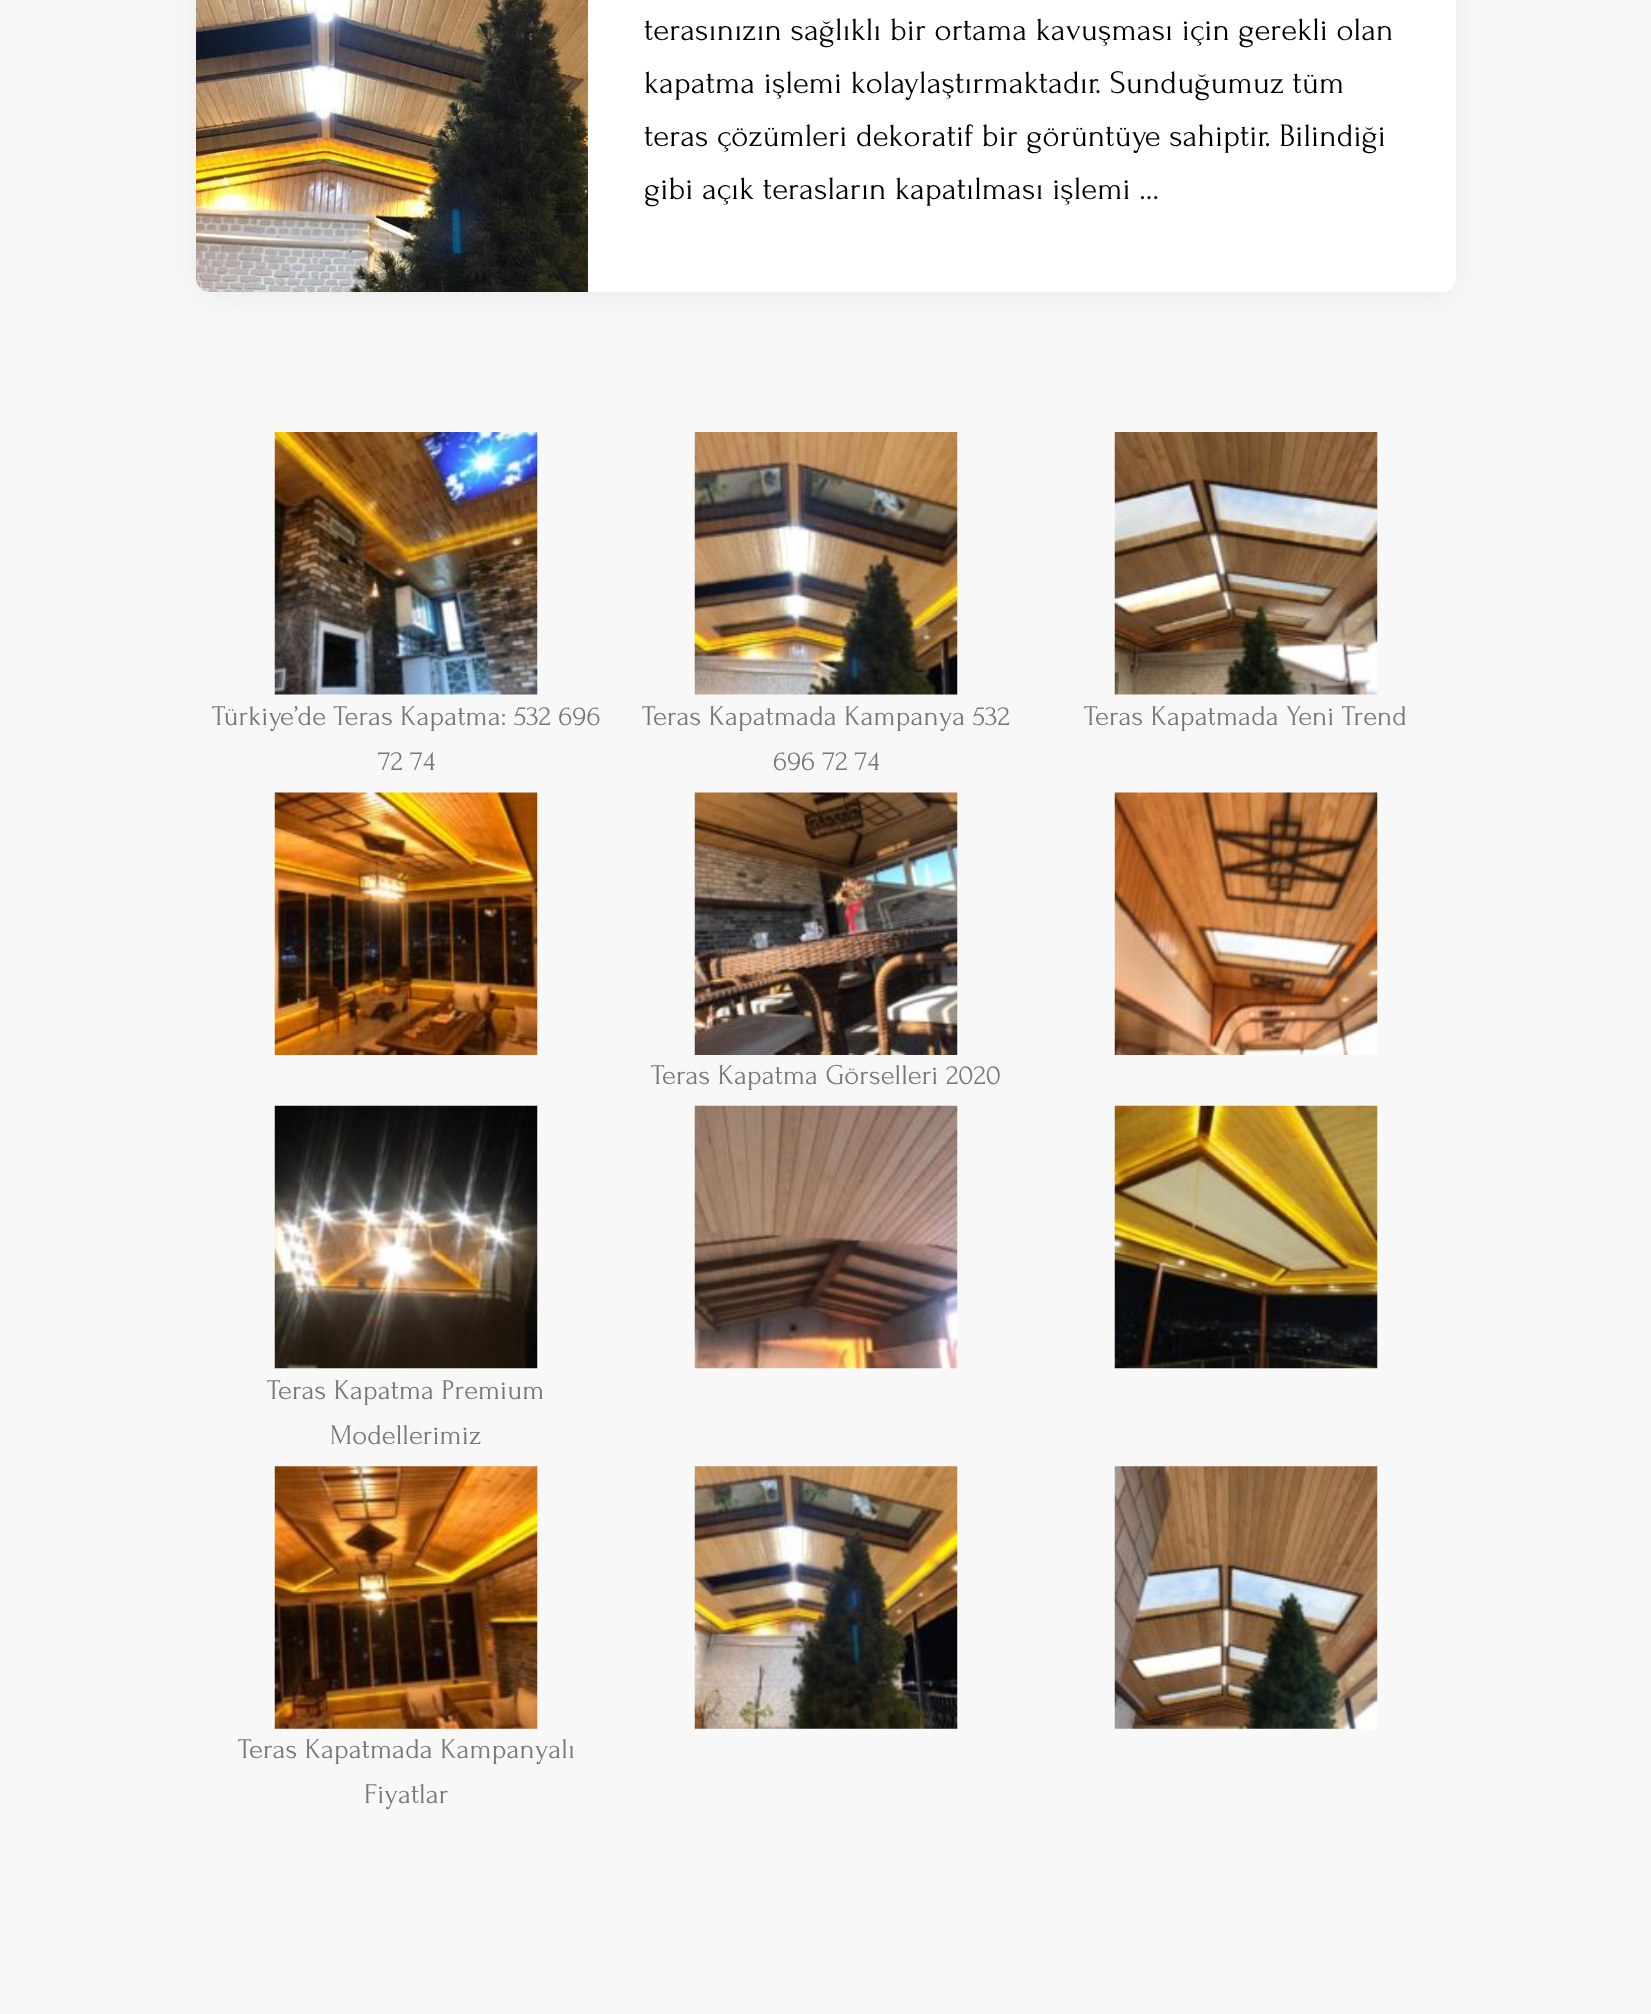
<!DOCTYPE html>
<meta charset="utf-8">
<style>body { margin: 0 } canvas { display: block }</style>
<canvas id="canvas" width="1651" height="2014"></canvas>
<script type="module">
  const canvas = document.getElementById("canvas");
  const ctx = canvas.getContext("2d");
  ctx.miterLimit = 4;
  ctx.fontKerning = "normal";
  async function loadImage(src) {
    const img = new Image();
    img.src = src;
    await img.decode();
    return img;
  }

  ctx.fillStyle = "#f8f8f8";
  ctx.fillRect(0, 0, 1651, 2014);
  ctx.fillStyle = "rgba(0, 0, 0, 0.05)";
  ctx.filter = "blur(17.5px)";
  ctx.beginPath();
  ctx.roundRect(196, -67, 1260, 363, 14);
  ctx.fill();
  ctx.filter = "none";
  ctx.fillStyle = "#ffffff";
  ctx.beginPath();
  ctx.roundRect(196, -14, 1260, 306, 14);
  ctx.fill();
  ctx.drawImage(await loadImage("img1.png"), 196, 0, 392, 292);
  ctx.font = "32.7px Forum";
  ctx.fillStyle = "#000000";
  ctx.fillText("terasınızın sağlıklı bir ortama kavuşması için gerekli olan", 644, 40);
  ctx.fillText("kapatma işlemi kolaylaştırmaktadır. Sunduğumuz tüm", 644, 93);
  ctx.fillText("teras çözümleri dekoratif bir görüntüye sahiptir. Bilindiği", 644, 146);
  ctx.fillText("gibi açık terasların kapatılması işlemi …", 644, 199);
  ctx.drawImage(await loadImage("img2.png"), 274, 432, 264, 263);
  ctx.font = "28.6px Forum";
  ctx.fillStyle = "#777777";
  ctx.fillText("Türkiye’de Teras Kapatma: 532 696", 212, 725);
  ctx.fillText("72 74", 378, 770);
  ctx.drawImage(await loadImage("img3.png"), 694, 432, 264, 263);
  ctx.fillText("Teras Kapatmada Kampanya 532", 642, 725);
  ctx.fillText("696 72 74", 773, 770);
  ctx.drawImage(await loadImage("img4.png"), 1114, 432, 264, 263);
  ctx.fillText("Teras Kapatmada Yeni Trend", 1084, 725);
  ctx.drawImage(await loadImage("img5.png"), 274, 792, 264, 263);
  ctx.drawImage(await loadImage("img6.png"), 1114, 792, 264, 263);
  ctx.drawImage(await loadImage("img7.png"), 694, 792, 264, 263);
  ctx.fillText("Teras Kapatma Görselleri 2020", 651, 1084);
  ctx.drawImage(await loadImage("img8.png"), 694, 1105, 264, 264);
  ctx.drawImage(await loadImage("img9.png"), 1114, 1105, 264, 264);
  ctx.drawImage(await loadImage("img10.png"), 274, 1105, 264, 264);
  ctx.fillText("Teras Kapatma Premium", 267, 1399);
  ctx.fillText("Modellerimiz", 330, 1444);
  ctx.drawImage(await loadImage("img11.png"), 694, 1466, 264, 263);
  ctx.drawImage(await loadImage("img12.png"), 1114, 1466, 264, 263);
  ctx.drawImage(await loadImage("img13.png"), 274, 1466, 264, 263);
  ctx.fillText("Teras Kapatmada Kampanyalı", 238, 1758);
  ctx.fillText("Fiyatlar", 364, 1803);
</script>
